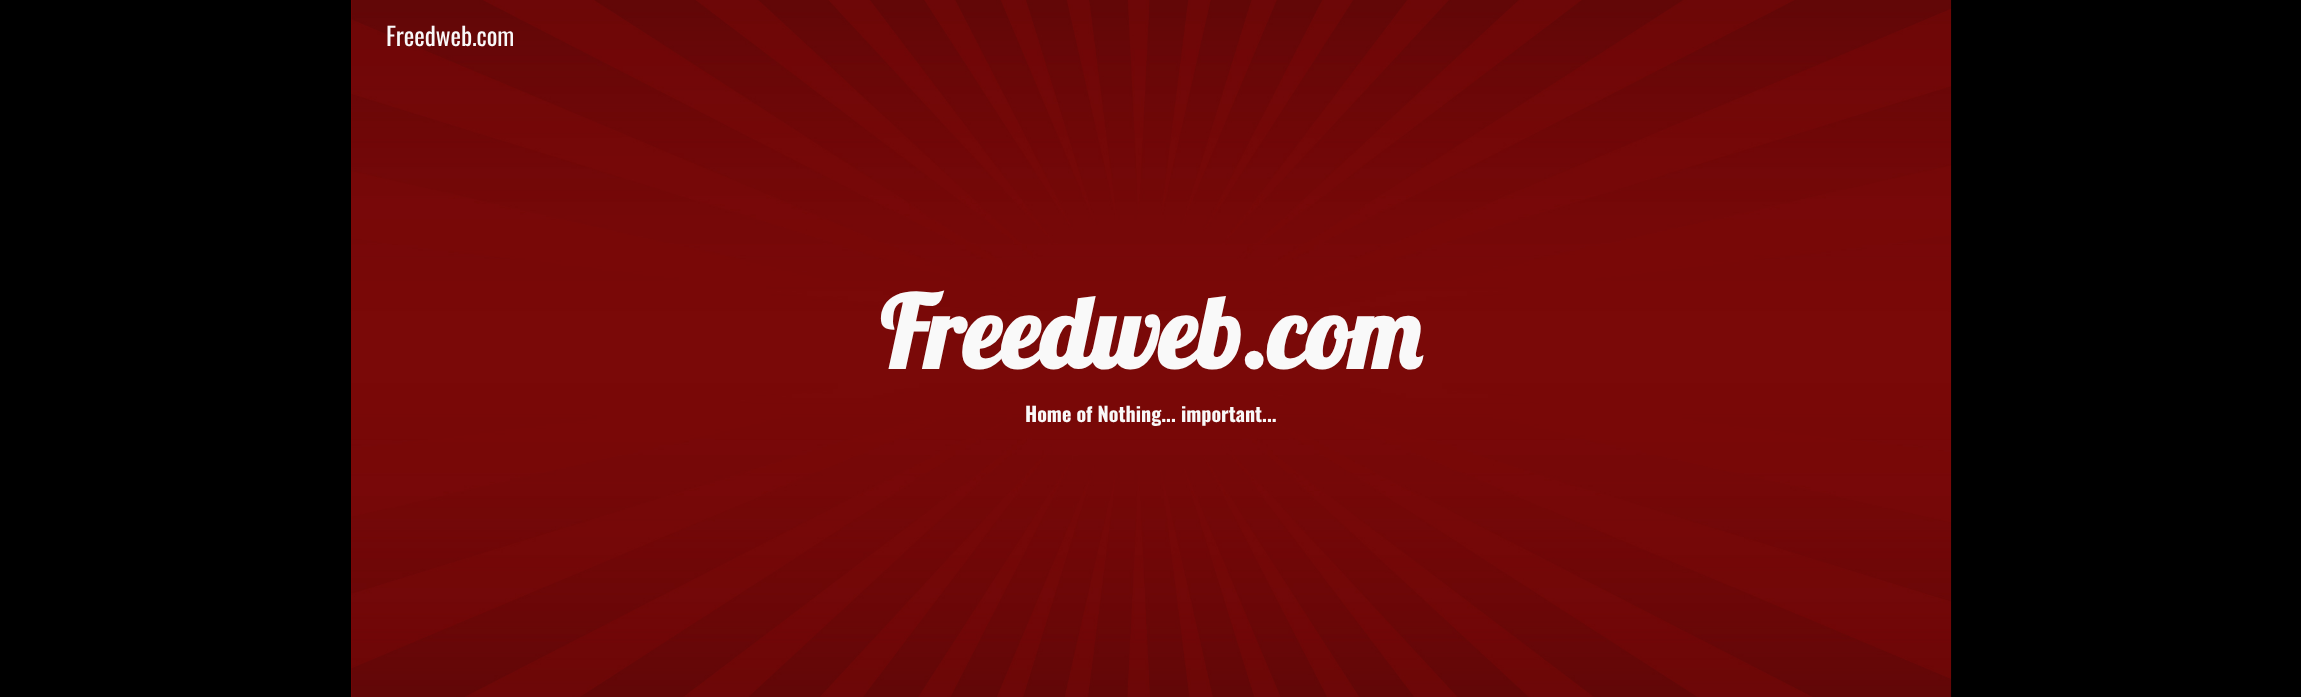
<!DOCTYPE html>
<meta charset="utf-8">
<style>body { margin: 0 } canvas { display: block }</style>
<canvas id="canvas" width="2301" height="697"></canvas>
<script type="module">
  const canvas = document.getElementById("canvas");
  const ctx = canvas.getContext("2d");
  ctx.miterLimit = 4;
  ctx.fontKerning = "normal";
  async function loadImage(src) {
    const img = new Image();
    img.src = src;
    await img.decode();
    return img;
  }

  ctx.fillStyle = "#000000";
  ctx.fillRect(0, 0, 2301, 697);
  ctx.fillStyle = "#800606";
  ctx.fillRect(351, 0, 1, 697);
  ctx.drawImage(await loadImage("img1.png"), 351, 0, 1601, 697);
  ctx.font = "25px Oswald";
  ctx.fillStyle = "#f9f9f9";
  ctx.fillText("Freedweb.com", 386, 46);
  ctx.font = "bold 100px Lobster";
  ctx.fillText("Freedweb.com", 880, 369);
  ctx.font = "bold 20px Oswald";
  ctx.fillText("Home of Nothing... important...", 1025, 422);
</script>
